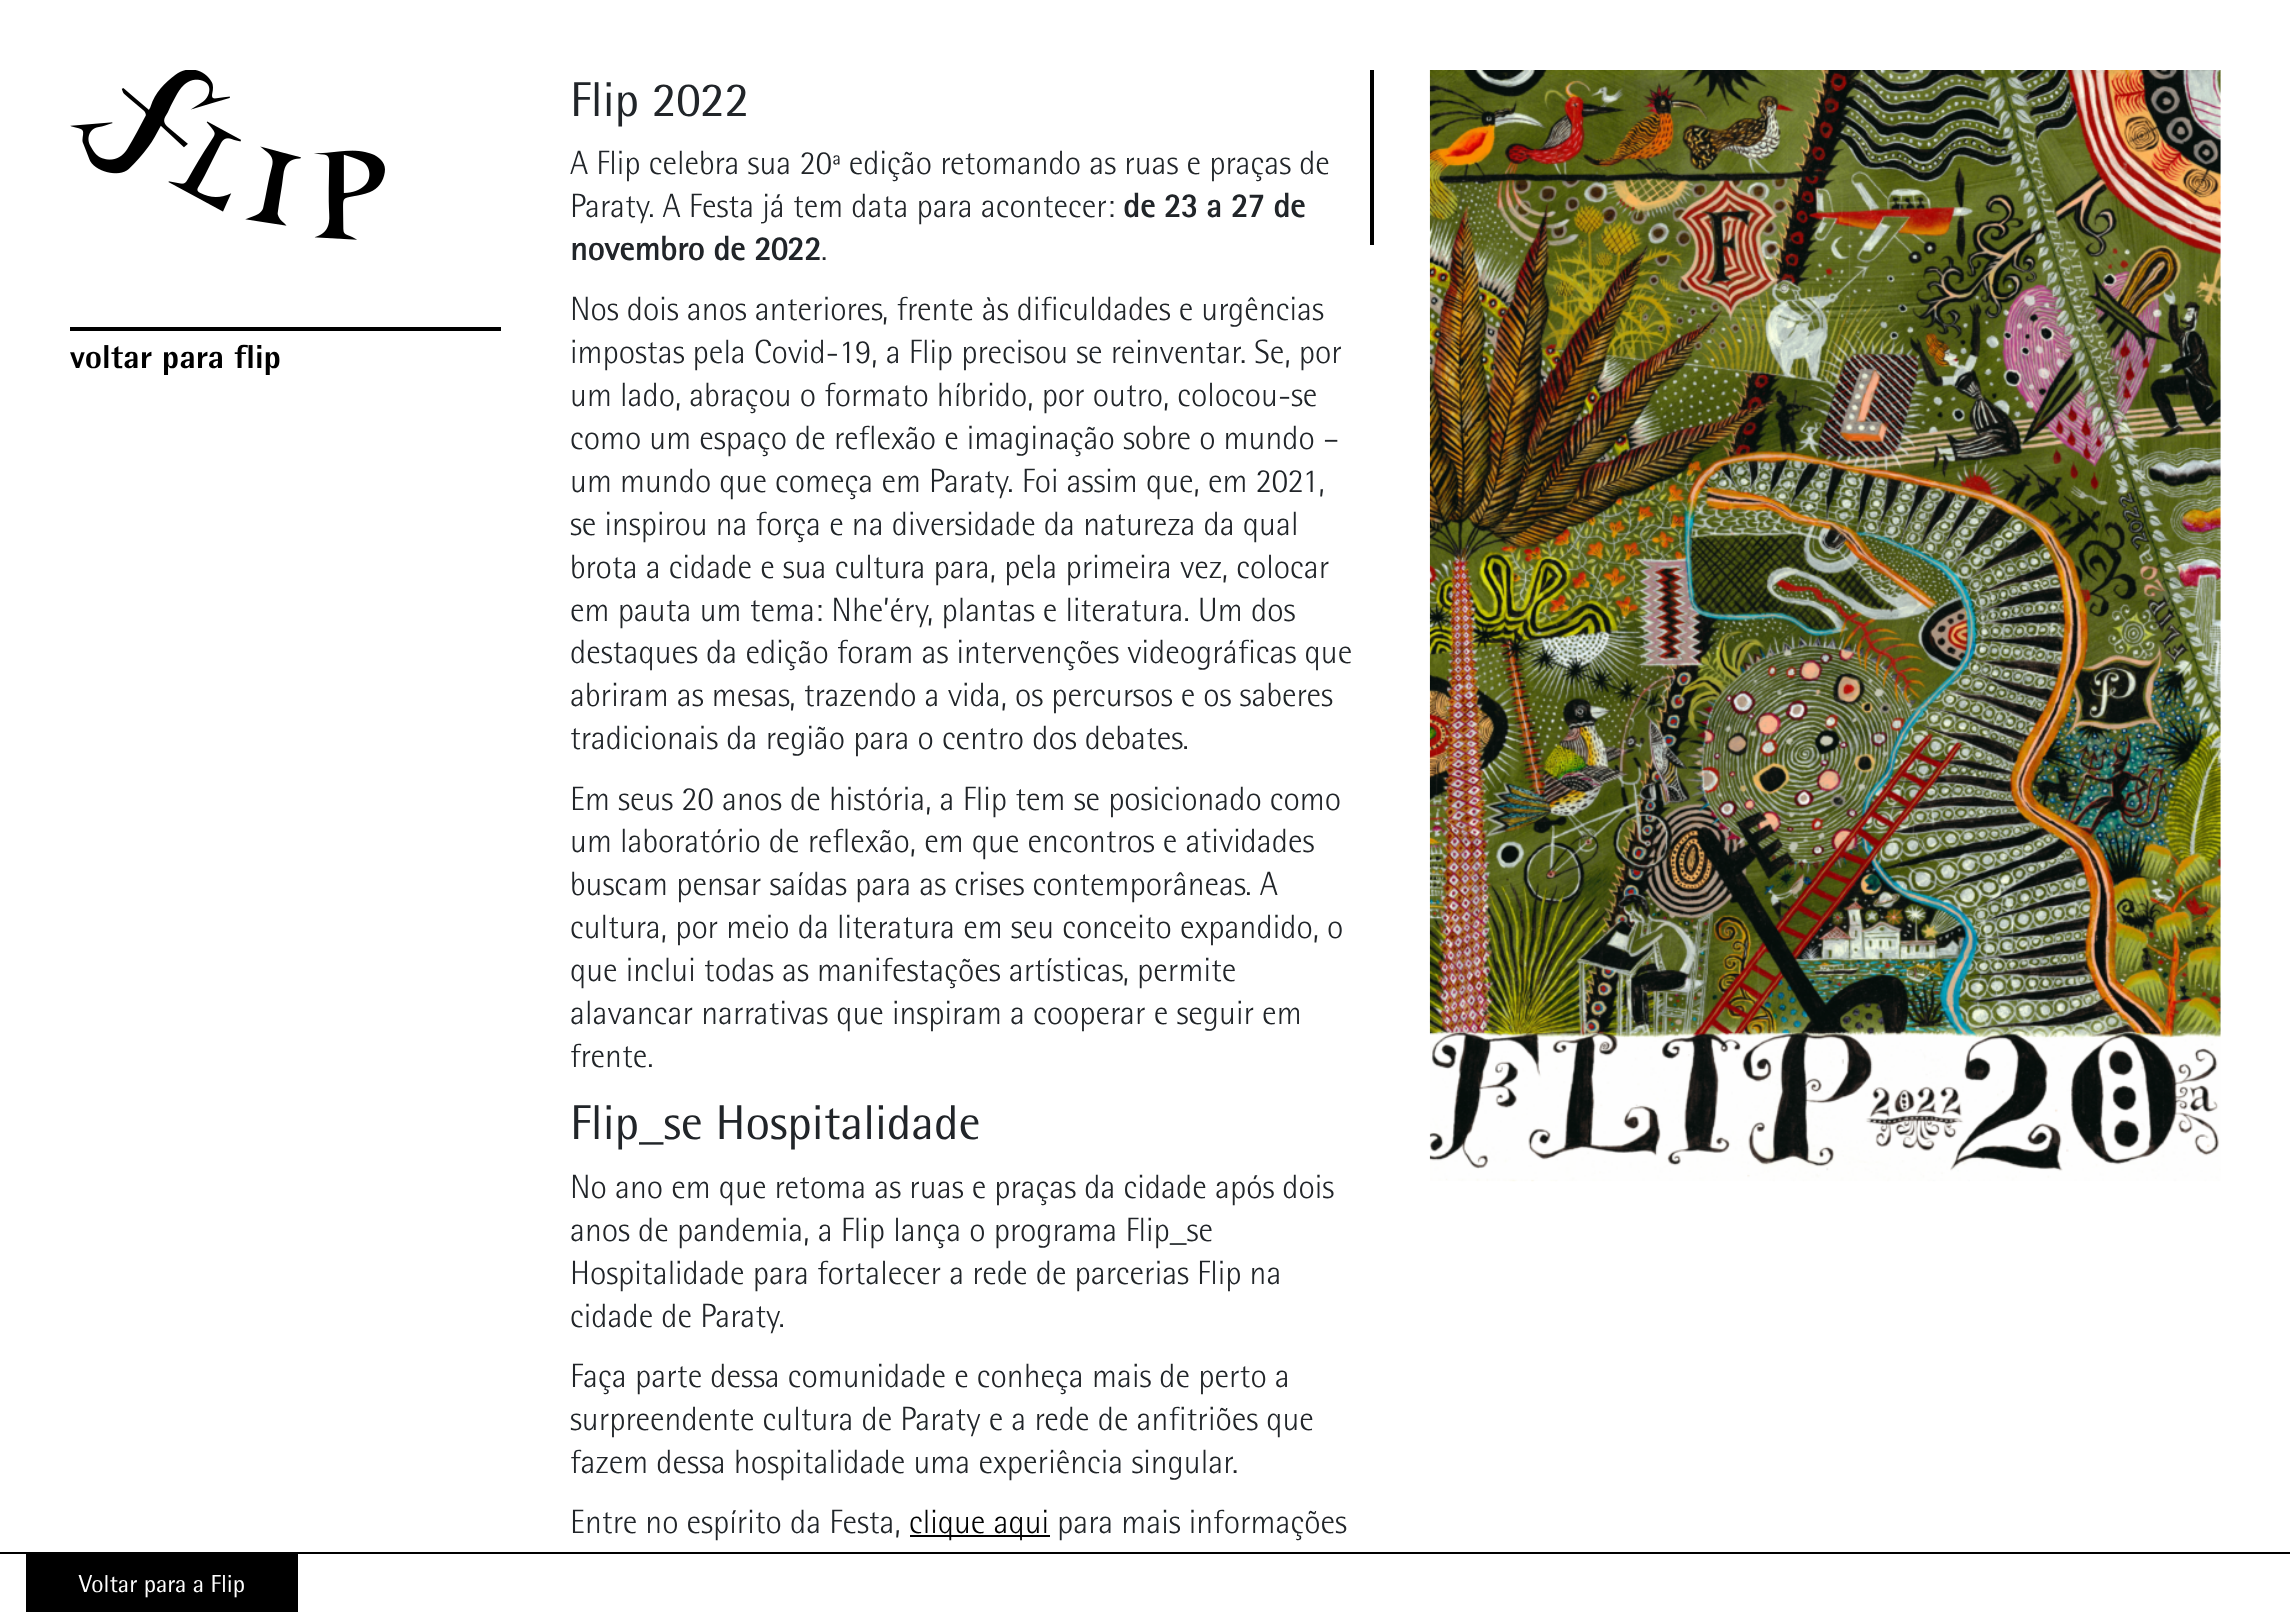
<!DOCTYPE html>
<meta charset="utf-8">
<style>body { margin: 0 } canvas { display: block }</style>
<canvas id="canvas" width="2290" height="1612"></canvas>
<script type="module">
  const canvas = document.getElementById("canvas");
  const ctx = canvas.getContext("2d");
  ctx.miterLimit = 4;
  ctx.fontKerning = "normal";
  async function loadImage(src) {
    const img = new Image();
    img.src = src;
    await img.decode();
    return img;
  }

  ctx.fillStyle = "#ffffff";
  ctx.fillRect(0, 0, 2290, 1612);
  ctx.fillStyle = "#000000";
  ctx.fillRect(70, 327, 431, 4);
  ctx.drawImage(await loadImage("img1.png"), 70, 70, 315, 170);
  ctx.font = "800 33.25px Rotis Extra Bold";
  ctx.fillText("voltar para flip", 70, 368);
  ctx.font = "49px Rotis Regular";
  ctx.fillStyle = "#212529";
  ctx.fillText("Flip 2022", 570, 116);
  ctx.font = "300 33.7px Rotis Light";
  ctx.fillText("A Flip celebra sua 20ª edição retomando as ruas e praças de", 570, 174);
  ctx.fillText("Paraty. A Festa já tem data para acontecer:", 570, 217);
  ctx.font = "bold 33.7px Rotis Regular";
  ctx.fillText("de 23 a 27 de", 1123, 217);
  ctx.fillText("novembro de 2022", 570, 260);
  ctx.font = "300 33.7px Rotis Light";
  ctx.fillText(".", 821, 260);
  ctx.fillText("Nos dois anos anteriores, frente às dificuldades e urgências", 570, 320);
  ctx.fillText("impostas pela Covid-19, a Flip precisou se reinventar. Se, por", 570, 363);
  ctx.fillText("um lado, abraçou o formato híbrido, por outro, colocou-se", 570, 406);
  ctx.fillText("como um espaço de reflexão e imaginação sobre o mundo –", 570, 449);
  ctx.fillText("um mundo que começa em Paraty. Foi assim que, em 2021,", 570, 492);
  ctx.fillText("se inspirou na força e na diversidade da natureza da qual", 570, 535);
  ctx.fillText("brota a cidade e sua cultura para, pela primeira vez, colocar", 570, 578);
  ctx.fillText("em pauta um tema: Nhe’éry, plantas e literatura. Um dos", 570, 621);
  ctx.fillText("destaques da edição foram as intervenções videográficas que", 570, 663);
  ctx.fillText("abriram as mesas, trazendo a vida, os percursos e os saberes", 570, 706);
  ctx.fillText("tradicionais da região para o centro dos debates.", 570, 749);
  ctx.fillText("Em seus 20 anos de história, a Flip tem se posicionado como", 570, 810);
  ctx.fillText("um laboratório de reflexão, em que encontros e atividades", 570, 852);
  ctx.fillText("buscam pensar saídas para as crises contemporâneas. A", 570, 895);
  ctx.fillText("cultura, por meio da literatura em seu conceito expandido, o", 570, 938);
  ctx.fillText("que inclui todas as manifestações artísticas, permite", 570, 981);
  ctx.fillText("alavancar narrativas que inspiram a cooperar e seguir em", 570, 1024);
  ctx.fillText("frente.", 570, 1067);
  ctx.font = "49px Rotis Regular";
  ctx.fillText("Flip_se Hospitalidade", 570, 1139);
  ctx.font = "300 33.7px Rotis Light";
  ctx.fillText("No ano em que retoma as ruas e praças da cidade após dois", 570, 1198);
  ctx.fillText("anos de pandemia, a Flip lança o programa Flip_se", 570, 1241);
  ctx.fillText("Hospitalidade para fortalecer a rede de parcerias Flip na", 570, 1284);
  ctx.fillText("cidade de Paraty.", 570, 1327);
  ctx.fillText("Faça parte dessa comunidade e conheça mais de perto a", 570, 1387);
  ctx.fillText("surpreendente cultura de Paraty e a rede de anfitriões que", 570, 1430);
  ctx.fillText("fazem dessa hospitalidade uma experiência singular.", 570, 1473);
  ctx.fillText("Entre no espírito da Festa,", 570, 1533);
  ctx.fillStyle = "#000000";
  ctx.fillRect(910, 1535, 140, 2);
  ctx.fillText("clique aqui", 909, 1533);
  ctx.fillStyle = "#212529";
  ctx.fillText("para mais informações", 1057, 1533);
  ctx.fillStyle = "#000000";
  ctx.fillRect(1370, 70, 4, 175);
  ctx.drawImage(await loadImage("img2.png"), 1429, 70, 792, 1112);
  ctx.fillRect(0, 1552, 2290, 2);
  ctx.fillRect(26, 1554, 272, 58);
  ctx.font = "24.5px Rotis Regular";
  ctx.fillStyle = "#ffffff";
  ctx.fillText("Voltar para a Flip", 79, 1592);
</script>
